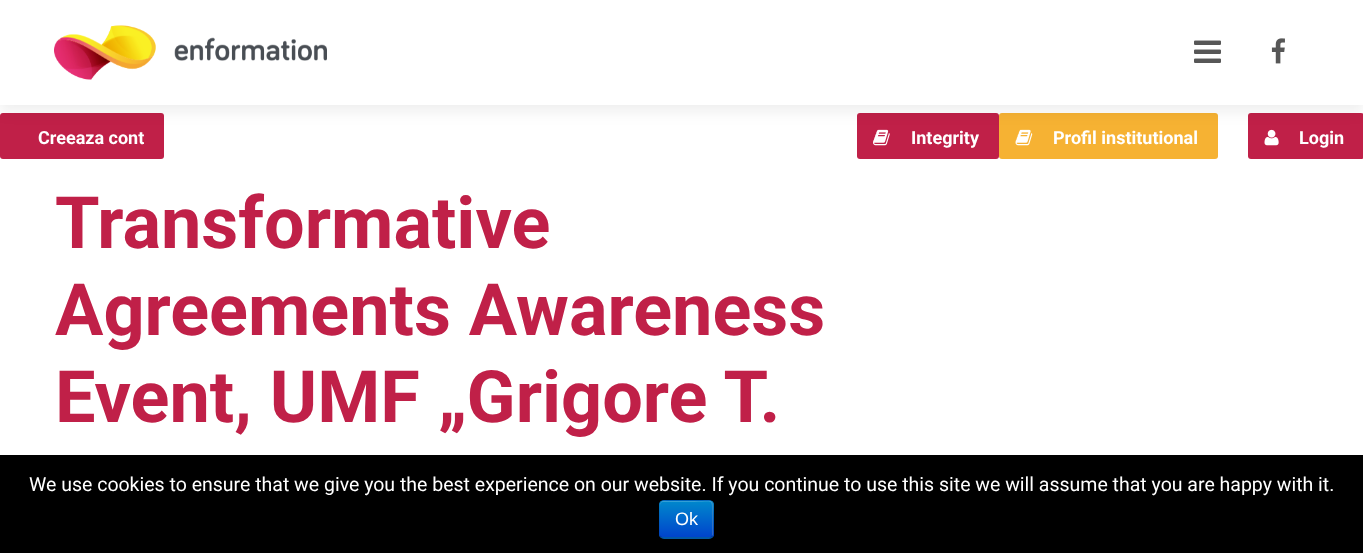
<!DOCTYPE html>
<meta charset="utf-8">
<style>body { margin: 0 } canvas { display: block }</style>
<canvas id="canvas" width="1363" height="553"></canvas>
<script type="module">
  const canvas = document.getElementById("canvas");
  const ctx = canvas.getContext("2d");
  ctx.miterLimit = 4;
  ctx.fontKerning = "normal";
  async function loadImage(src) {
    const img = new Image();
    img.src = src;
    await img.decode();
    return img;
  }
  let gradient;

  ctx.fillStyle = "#ffffff";
  ctx.fillRect(0, 0, 1363, 553);
  ctx.fillStyle = "#c02048";
  ctx.beginPath();
  ctx.roundRect(0, 113, 164, 46, 3);
  ctx.fill();
  ctx.beginPath();
  ctx.roundRect(857, 113, 142, 46, 3);
  ctx.fill();
  ctx.drawImage(await loadImage("img4.png"), 873, 129, 17, 17);
  ctx.fillStyle = "#f6b233";
  ctx.beginPath();
  ctx.roundRect(999, 113, 219, 46, 3);
  ctx.fill();
  ctx.drawImage(await loadImage("img5.png"), 1015, 129, 18, 17);
  ctx.fillStyle = "#c02048";
  ctx.beginPath();
  ctx.roundRect(1248, 113, 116, 46, 3);
  ctx.fill();
  ctx.drawImage(await loadImage("img6.png"), 1264, 129, 15, 17);
  ctx.fillStyle = "rgba(0, 0, 0, 0.07)";
  ctx.filter = "blur(7.5px)";
  ctx.beginPath();
  ctx.rect(0, 6, 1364, 105);
  ctx.fill();
  ctx.filter = "none";
  ctx.fillStyle = "#ffffff";
  ctx.fillRect(0, 0, 1363, 105);
  ctx.drawImage(await loadImage("img1.png"), 54, 25, 273, 55);
  ctx.drawImage(await loadImage("img2.png"), 1194, 40, 27, 23);
  ctx.drawImage(await loadImage("img3.png"), 1271, 38, 14, 26);
  ctx.font = "bold 18px Roboto";
  ctx.fillText("Creeaza cont", 38, 144);
  ctx.fillText("Integrity", 911, 144);
  ctx.fillText("Profil institutional", 1053, 144);
  ctx.fillText("Login", 1299, 144);
  ctx.font = "bold 72px Roboto";
  ctx.fillStyle = "#c02048";
  ctx.fillText("Transformative", 55, 248);
  ctx.fillText("Agreements Awareness", 55, 335);
  ctx.fillText("Event, UMF „Grigore T.", 55, 422);
  ctx.fillStyle = "#000000";
  ctx.fillRect(0, 455, 1363, 98);
  ctx.font = "19.5px Roboto";
  ctx.fillStyle = "#ffffff";
  ctx.fillText("We use cookies to ensure that we give you the best experience on our website. If you continue to use this site we will assume that you are happy with it.", 29, 491);
  ctx.fillStyle = "#006dcc";
  ctx.beginPath();
  ctx.roundRect(659, 500, 55, 39, 5);
  ctx.fill();
  ctx.save();
  ctx.beginPath();
  ctx.roundRect(659, 500, 55, 39, 5);
  ctx.clip();
  gradient = ctx.createLinearGradient(686, 501, 686, 537);
  gradient.addColorStop(0, "#0088cc");
  gradient.addColorStop(1, "#0044cc");
  ctx.fillStyle = gradient;
  ctx.fillRect(659, 501, 55, 36);
  ctx.restore();
  ctx.fillStyle = "rgba(255, 255, 255, 0.2)";
  ctx.beginPath();
  ctx.moveTo(663, 502);
  ctx.lineTo(694, 502);
  ctx.bezierCurveTo(714, 502, 712, 498, 712, 516);
  ctx.lineTo(712, 536);
  ctx.bezierCurveTo(714, 535, 713, 531, 713, 529);
  ctx.lineTo(713, 519);
  ctx.bezierCurveTo(713, 497, 717, 501, 694, 501);
  ctx.lineTo(671, 501);
  ctx.bezierCurveTo(664, 501, 660, 499, 660, 506);
  ctx.bezierCurveTo(660, 504, 661, 502, 663, 502);
  ctx.closePath();
  ctx.fill();
  ctx.beginPath();
  ctx.moveTo(712, 536.5);
  ctx.bezierCurveTo(711.5, 537.5, 710.5, 538, 709.5, 538);
  ctx.lineTo(663, 538);
  ctx.bezierCurveTo(662, 538, 661, 537.5, 660.5, 536.5);
  ctx.strokeStyle = "rgba(0, 0, 0, 0.25)";
  ctx.lineWidth = 1.5;
  ctx.stroke();
  ctx.beginPath();
  ctx.moveTo(660.5, 536.5);
  ctx.bezierCurveTo(659.5, 536, 659, 535, 659, 534);
  ctx.lineTo(659, 504);
  ctx.bezierCurveTo(659, 503, 659.5, 502, 660.5, 501.5);
  ctx.bezierCurveTo(661, 500.5, 662, 500, 663, 500);
  ctx.lineTo(709.5, 500);
  ctx.bezierCurveTo(710.5, 500, 711.5, 500.5, 712, 501.5);
  ctx.bezierCurveTo(713, 502, 713, 503, 713, 504);
  ctx.lineTo(713, 534);
  ctx.bezierCurveTo(713, 535, 713, 536, 712, 536.5);
  ctx.strokeStyle = "rgba(0, 0, 0, 0.1)";
  ctx.stroke();
  ctx.font = "18px Liberation Sans";
  ctx.fillStyle = "#ffffff";
  ctx.fillText("Ok", 675, 525);
</script>
